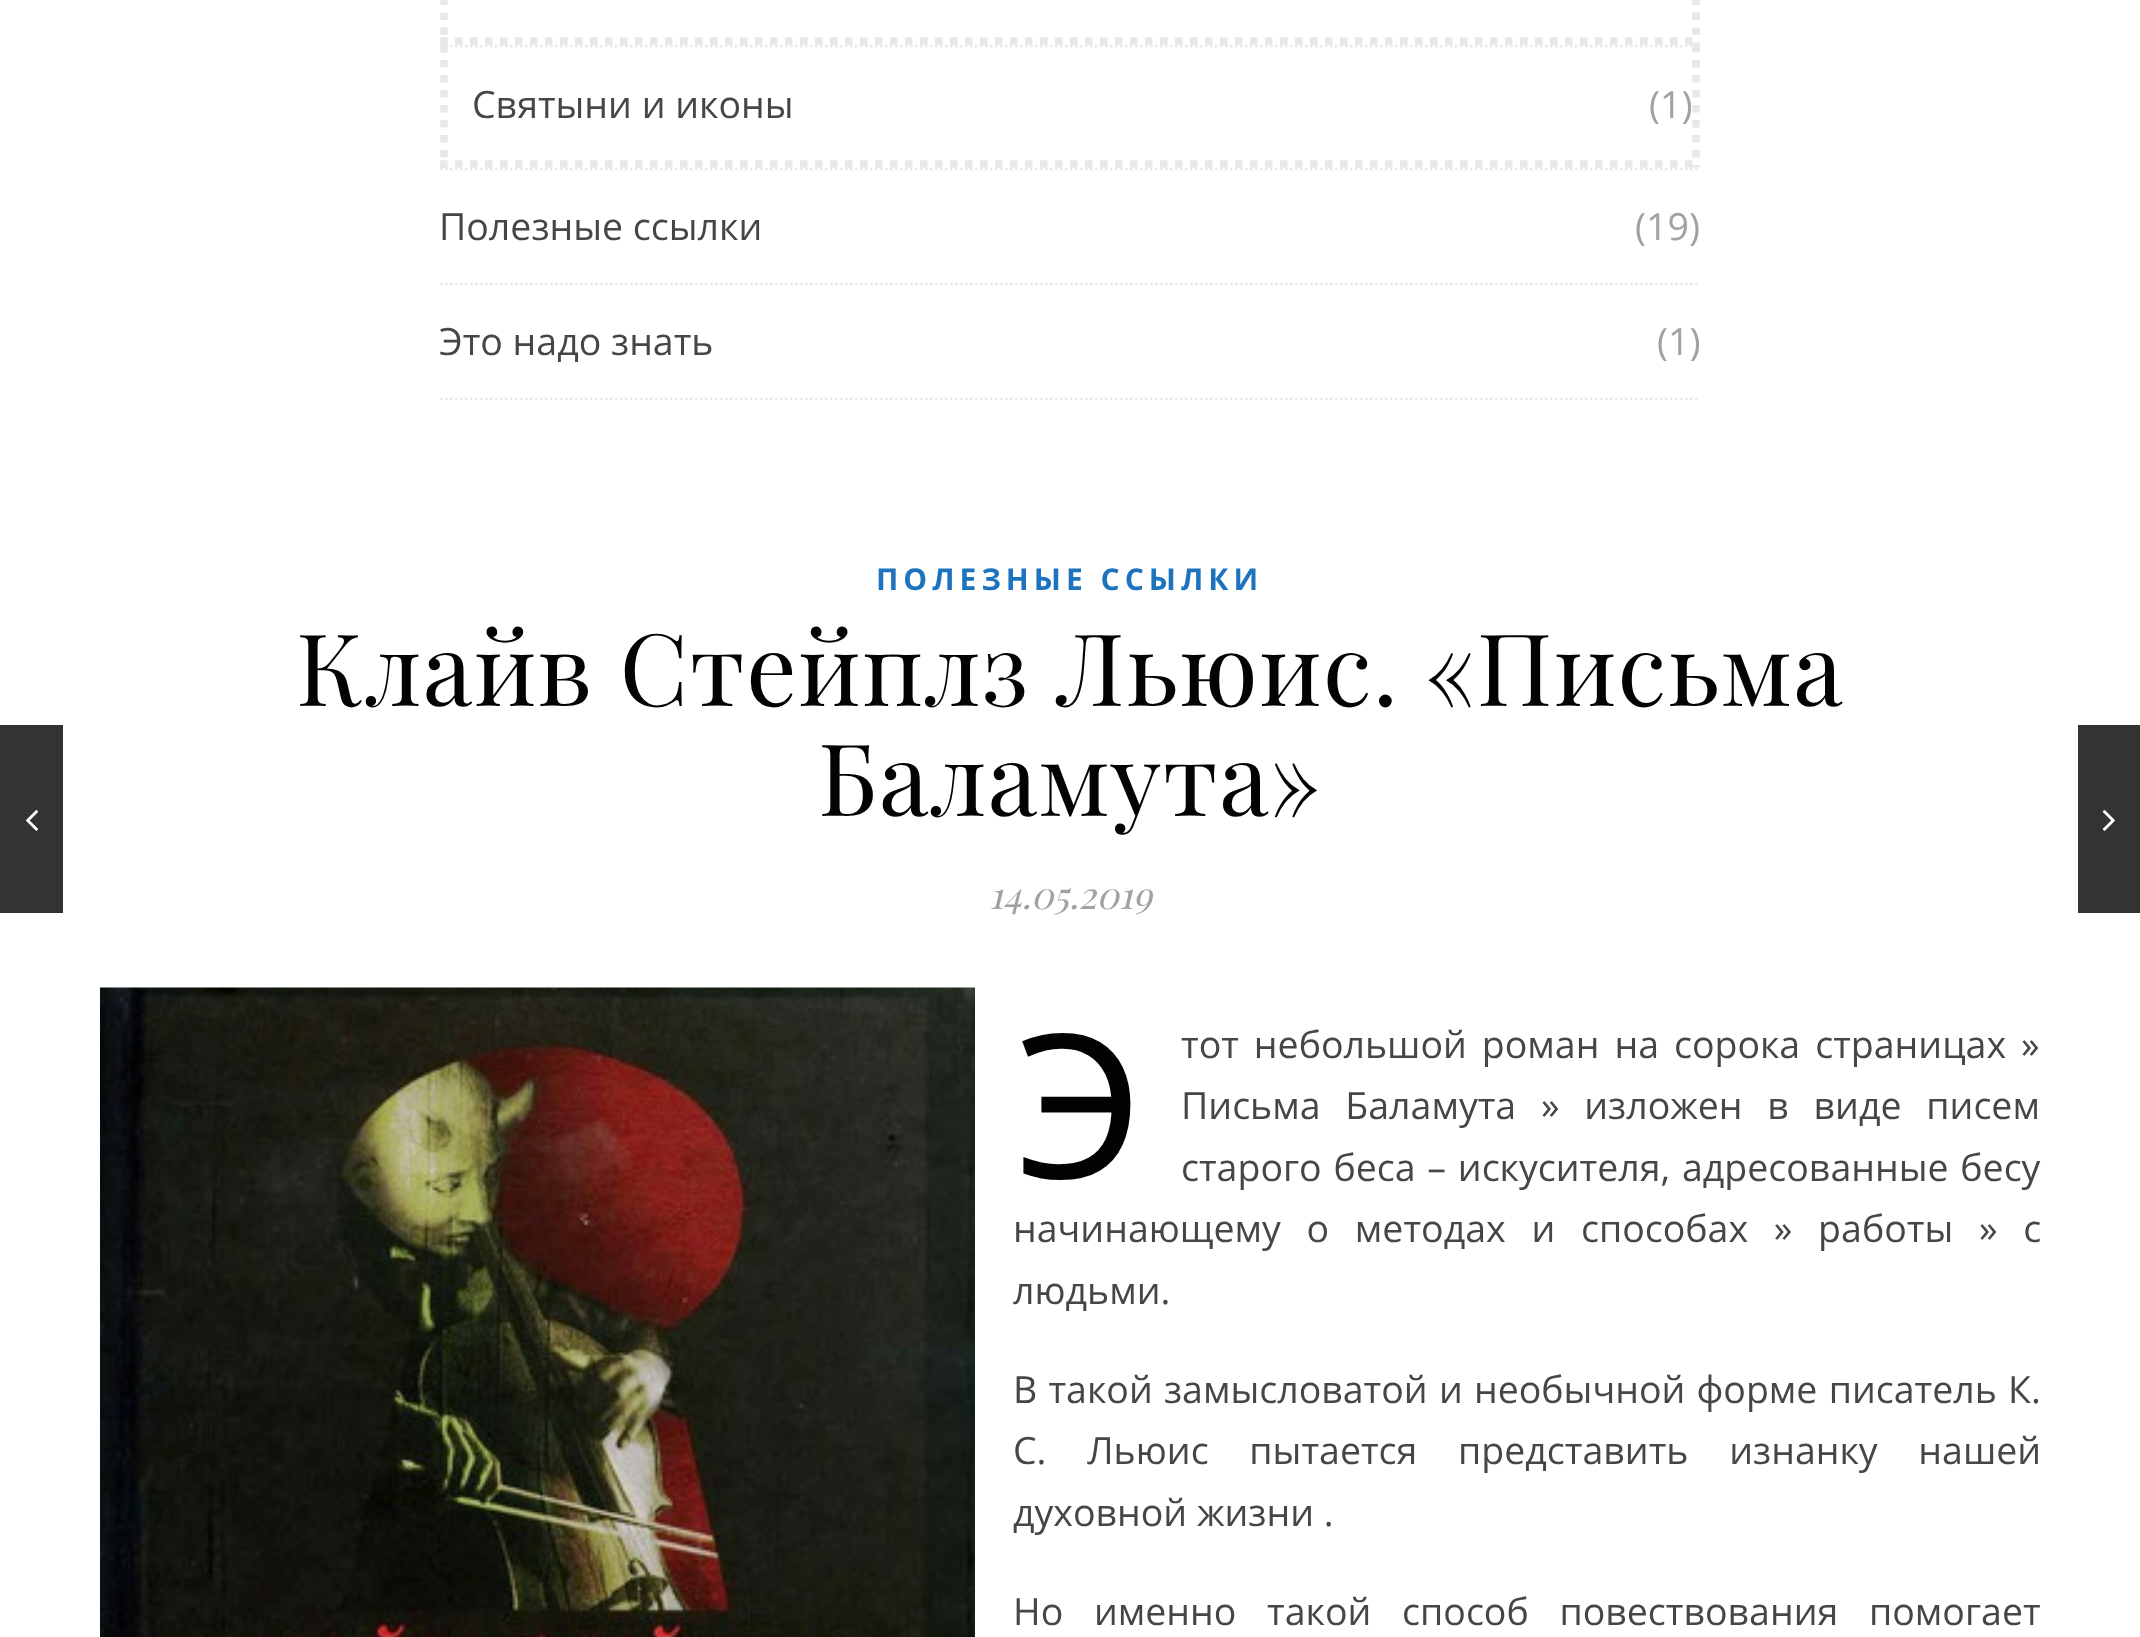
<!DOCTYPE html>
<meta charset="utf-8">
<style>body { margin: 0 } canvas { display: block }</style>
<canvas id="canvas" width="2140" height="1637"></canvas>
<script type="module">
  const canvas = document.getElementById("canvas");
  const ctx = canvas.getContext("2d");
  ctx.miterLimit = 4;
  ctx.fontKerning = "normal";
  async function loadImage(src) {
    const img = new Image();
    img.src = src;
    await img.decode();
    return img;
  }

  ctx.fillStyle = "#ffffff";
  ctx.fillRect(0, 0, 2140, 1637);
  ctx.beginPath();
  ctx.moveTo(440, 169);
  ctx.lineTo(1700, 169);
  ctx.strokeStyle = "#e8e8e8";
  ctx.lineWidth = 2.5;
  ctx.setLineDash([2.5, 2.5]);
  ctx.stroke();
  ctx.beginPath();
  ctx.moveTo(1696, -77.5);
  ctx.lineTo(1696, 45);
  ctx.lineWidth = 7.5;
  ctx.setLineDash([7.5, 7.5]);
  ctx.stroke();
  ctx.beginPath();
  ctx.moveTo(440, 41);
  ctx.lineTo(1700, 41);
  ctx.stroke();
  ctx.beginPath();
  ctx.moveTo(444, -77.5);
  ctx.lineTo(444, 45);
  ctx.stroke();
  ctx.beginPath();
  ctx.moveTo(440, 46);
  ctx.lineTo(1700, 46);
  ctx.lineWidth = 2.5;
  ctx.setLineDash([2.5, 2.5]);
  ctx.stroke();
  ctx.beginPath();
  ctx.moveTo(1696, 45);
  ctx.lineTo(1696, 167.5);
  ctx.lineWidth = 7.5;
  ctx.setLineDash([7.5, 7.5]);
  ctx.stroke();
  ctx.beginPath();
  ctx.moveTo(440, 164);
  ctx.lineTo(1700, 164);
  ctx.stroke();
  ctx.beginPath();
  ctx.moveTo(444, 45);
  ctx.lineTo(444, 167.5);
  ctx.stroke();
  ctx.font = "37.5px Open Sans";
  ctx.fillStyle = "#464646";
  ctx.fillText("Святыни и иконы", 472, 118);
  ctx.fillStyle = "#a1a1a1";
  ctx.fillText("(1)", 1649, 118);
  ctx.beginPath();
  ctx.moveTo(440, 284);
  ctx.lineTo(1700, 284);
  ctx.lineWidth = 2.5;
  ctx.setLineDash([2.5, 2.5]);
  ctx.stroke();
  ctx.fillStyle = "#464646";
  ctx.fillText("Полезные ссылки", 439, 240);
  ctx.fillStyle = "#a1a1a1";
  ctx.fillText("(19)", 1635, 240);
  ctx.save();
  ctx.beginPath();
  ctx.rect(440, 0, 1260, 400);
  ctx.clip();
  ctx.beginPath();
  ctx.moveTo(440, 399);
  ctx.lineTo(1700, 399);
  ctx.stroke();
  ctx.restore();
  ctx.fillStyle = "#464646";
  ctx.fillText("Это надо знать", 439, 355);
  ctx.fillStyle = "#a1a1a1";
  ctx.fillText("(1)", 1657, 355);
  ctx.fillStyle = "#333333";
  ctx.fillRect(0, 725, 63, 188);
  ctx.drawImage(await loadImage("img1.png"), 26, 810, 13, 21);
  ctx.letterSpacing = "5px";
  ctx.font = "bold 30px Open Sans";
  ctx.fillStyle = "#1e73be";
  ctx.fillText("ПОЛЕЗНЫЕ ССЫЛКИ", 876, 590);
  ctx.letterSpacing = "1.25px";
  ctx.font = "100px Playfair Display";
  ctx.fillStyle = "#030303";
  ctx.fillText("Клайв Стейплз Льюис. «Письма", 296, 706);
  ctx.fillText("Баламута»", 818, 816);
  ctx.letterSpacing = "0px";
  ctx.font = "italic 37.5px Playfair Display";
  ctx.fillStyle = "#a1a1a1";
  ctx.fillText("14.05.2019", 989, 909);
  ctx.drawImage(await loadImage("img2.png"), 100, 987, 875, 650);
  ctx.font = "200px Noto Sans";
  ctx.fillStyle = "#030303";
  ctx.fillText("Э", 1013, 1178);
  ctx.wordSpacing = "5.25px";
  ctx.font = "37.5px Open Sans";
  ctx.fillStyle = "#464646";
  ctx.fillText("тот небольшой роман на сорока страницах »", 1181, 1058);
  ctx.wordSpacing = "15px";
  ctx.fillText("Письма Баламута » изложен в виде писем", 1181, 1119);
  ctx.wordSpacing = "2px";
  ctx.fillText("старого беса – искусителя, адресованные бесу", 1181, 1181);
  ctx.wordSpacing = "16px";
  ctx.fillText("начинающему о методах и способах » работы » с", 1013, 1242);
  ctx.wordSpacing = "0px";
  ctx.fillText("людьми.", 1013, 1304);
  ctx.wordSpacing = "1.5px";
  ctx.fillText("В такой замысловатой и необычной форме писатель К.", 1013, 1403);
  ctx.wordSpacing = "31px";
  ctx.fillText("С. Льюис пытается представить изнанку нашей", 1013, 1464);
  ctx.wordSpacing = "0px";
  ctx.fillText("духовной жизни .", 1013, 1526);
  ctx.wordSpacing = "21px";
  ctx.fillText("Но именно такой способ повествования помогает", 1013, 1625);
  ctx.fillStyle = "#333333";
  ctx.fillRect(2078, 725, 62, 188);
  ctx.drawImage(await loadImage("img3.png"), 2102, 810, 13, 21);
</script>
